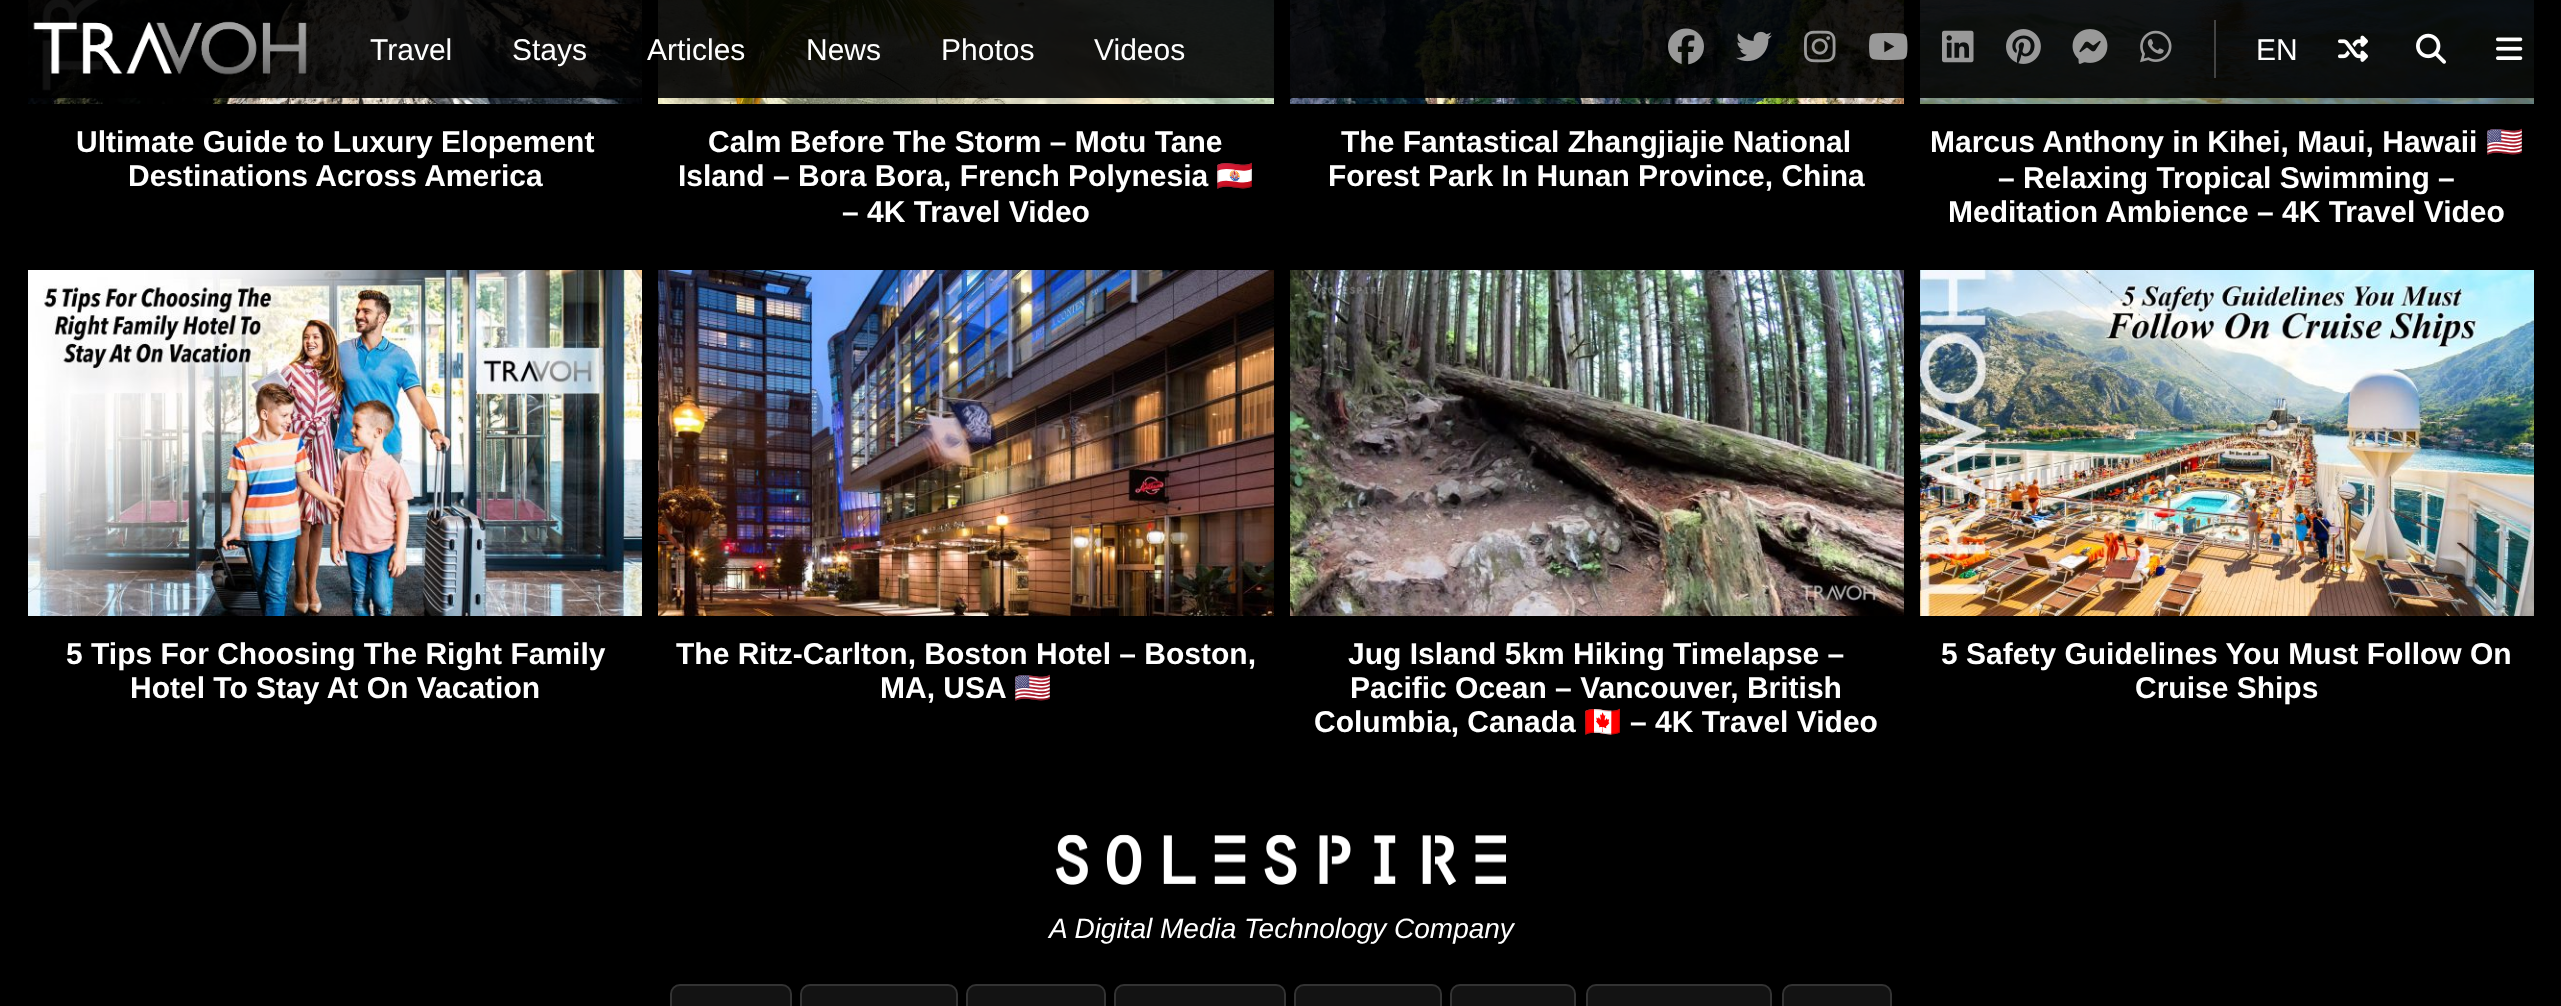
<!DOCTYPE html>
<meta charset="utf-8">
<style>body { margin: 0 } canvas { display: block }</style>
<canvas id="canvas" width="2561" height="1006"></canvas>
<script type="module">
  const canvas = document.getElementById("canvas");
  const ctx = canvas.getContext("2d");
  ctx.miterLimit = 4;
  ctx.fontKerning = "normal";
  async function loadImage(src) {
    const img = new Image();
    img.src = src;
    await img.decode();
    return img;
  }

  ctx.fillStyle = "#000000";
  ctx.fillRect(0, 0, 2561, 1006);
  ctx.drawImage(await loadImage("img13.png"), 28, 0, 614, 104);
  ctx.drawImage(await loadImage("img1.png"), 33, 21, 274, 54);
  ctx.font = "30px Liberation Sans";
  ctx.fillStyle = "#ffffff";
  ctx.fillText("Travel", 370, 60);
  ctx.fillText("Stays", 512, 60);
  ctx.drawImage(await loadImage("img14.png"), 658, 0, 616, 104);
  ctx.fillText("Articles", 647, 60);
  ctx.fillText("News", 806, 60);
  ctx.fillText("Photos", 941, 60);
  ctx.fillText("Videos", 1094, 60);
  ctx.drawImage(await loadImage("img15.png"), 1290, 0, 614, 104);
  ctx.drawImage(await loadImage("img2.png"), 1668, 28, 36, 37);
  ctx.drawImage(await loadImage("img3.png"), 1736, 31, 36, 31);
  ctx.drawImage(await loadImage("img4.png"), 1804, 30, 32, 33);
  ctx.drawImage(await loadImage("img5.png"), 1869, 33, 39, 27);
  ctx.drawImage(await loadImage("img16.png"), 1920, 0, 614, 104);
  ctx.drawImage(await loadImage("img6.png"), 1942, 30, 32, 33);
  ctx.drawImage(await loadImage("img7.png"), 2006, 29, 35, 35);
  ctx.drawImage(await loadImage("img8.png"), 2072, 29, 36, 35);
  ctx.drawImage(await loadImage("img9.png"), 2140, 30, 32, 33);
  ctx.fillStyle = "#444444";
  ctx.fillRect(2214, 20, 2, 58);
  ctx.fillStyle = "#ffffff";
  ctx.fillText("EN", 2256, 60);
  ctx.drawImage(await loadImage("img10.png"), 2338, 35, 30, 27);
  ctx.drawImage(await loadImage("img11.png"), 2416, 33, 30, 31);
  ctx.drawImage(await loadImage("img12.png"), 2496, 37, 27, 23);
  ctx.font = "bold 30px Liberation Sans";
  ctx.fillText("Ultimate Guide to Luxury Elopement", 76, 152);
  ctx.fillText("Destinations Across America", 128, 186);
  ctx.fillText("Calm Before The Storm – Motu Tane", 708, 152);
  ctx.fillText("Island – Bora Bora, French Polynesia", 678, 186);
  ctx.font = "bold 30px Noto Color Emoji";
  ctx.fillText("🇵🇫", 1216, 186);
  ctx.font = "bold 30px Liberation Sans";
  ctx.fillText("– 4K Travel Video", 842, 222);
  ctx.fillText("The Fantastical Zhangjiajie National", 1341, 152);
  ctx.fillText("Forest Park In Hunan Province, China", 1328, 186);
  ctx.fillText("Marcus Anthony in Kihei, Maui, Hawaii", 1930, 152);
  ctx.font = "bold 30px Noto Color Emoji";
  ctx.fillText("🇺🇸", 2486, 152);
  ctx.font = "bold 30px Liberation Sans";
  ctx.fillText("– Relaxing Tropical Swimming –", 1998, 188);
  ctx.fillText("Meditation Ambience – 4K Travel Video", 1948, 222);
  ctx.drawImage(await loadImage("img17.png"), 28, 270, 614, 346);
  ctx.fillText("5 Tips For Choosing The Right Family", 66, 664);
  ctx.fillText("Hotel To Stay At On Vacation", 130, 698);
  ctx.drawImage(await loadImage("img18.png"), 658, 270, 616, 346);
  ctx.fillText("The Ritz-Carlton, Boston Hotel – Boston,", 676, 664);
  ctx.fillText("MA, USA", 880, 698);
  ctx.font = "bold 30px Noto Color Emoji";
  ctx.fillText("🇺🇸", 1014, 698);
  ctx.drawImage(await loadImage("img19.png"), 1290, 270, 614, 346);
  ctx.font = "bold 30px Liberation Sans";
  ctx.fillText("Jug Island 5km Hiking Timelapse –", 1348, 664);
  ctx.fillText("Pacific Ocean – Vancouver, British", 1350, 698);
  ctx.fillText("Columbia, Canada", 1314, 732);
  ctx.font = "bold 30px Noto Color Emoji";
  ctx.fillText("🇨🇦", 1584, 732);
  ctx.font = "bold 30px Liberation Sans";
  ctx.fillText("– 4K Travel Video", 1630, 732);
  ctx.drawImage(await loadImage("img20.png"), 1920, 270, 614, 346);
  ctx.fillText("5 Safety Guidelines You Must Follow On", 1941, 664);
  ctx.fillText("Cruise Ships", 2135, 698);
  ctx.drawImage(await loadImage("img21.png"), 1056, 834, 450, 52);
  ctx.font = "italic 28px Liberation Sans";
  ctx.fillText("A Digital Media Technology Company", 1049, 938);
  ctx.fillStyle = "#131313";
  ctx.beginPath();
  ctx.roundRect(671, 985, 120, 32, 9);
  ctx.fill();
  ctx.strokeStyle = "#333333";
  ctx.lineWidth = 2;
  ctx.stroke();
  ctx.beginPath();
  ctx.roundRect(801, 985, 156, 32, 9);
  ctx.fill();
  ctx.stroke();
  ctx.beginPath();
  ctx.roundRect(967, 985, 138, 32, 9);
  ctx.fill();
  ctx.stroke();
  ctx.beginPath();
  ctx.roundRect(1115, 985, 170, 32, 9);
  ctx.fill();
  ctx.stroke();
  ctx.beginPath();
  ctx.roundRect(1295, 985, 146, 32, 9);
  ctx.fill();
  ctx.stroke();
  ctx.beginPath();
  ctx.roundRect(1451, 985, 124, 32, 9);
  ctx.fill();
  ctx.stroke();
  ctx.beginPath();
  ctx.roundRect(1587, 985, 184, 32, 9);
  ctx.fill();
  ctx.stroke();
  ctx.beginPath();
  ctx.roundRect(1783, 985, 108, 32, 9);
  ctx.fill();
  ctx.stroke();
</script>
